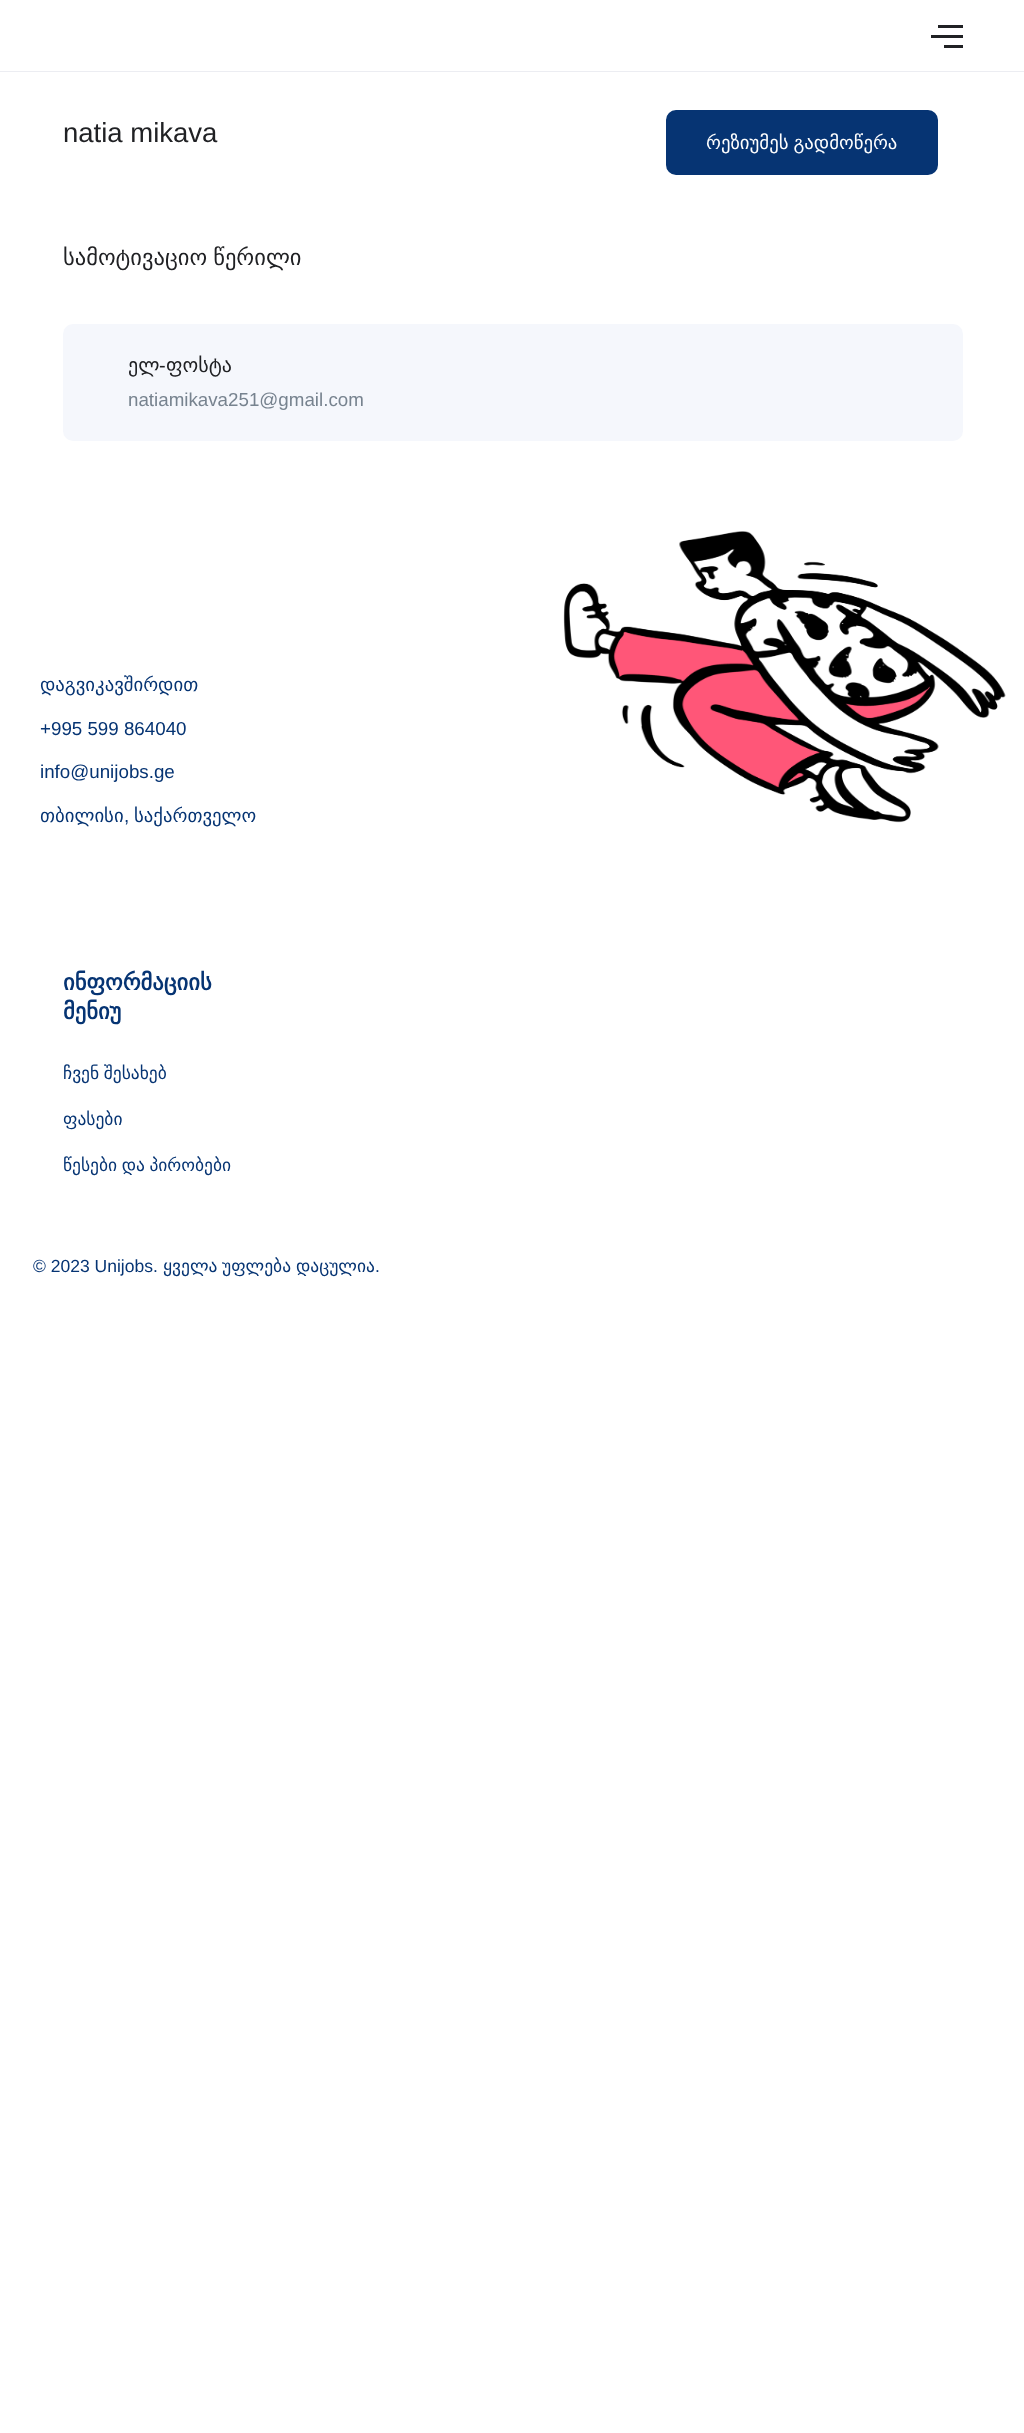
<!DOCTYPE html>
<meta charset="utf-8">
<style>body { margin: 0 } canvas { display: block }</style>
<canvas id="canvas" width="1024" height="2433"></canvas>
<script type="module">
  const canvas = document.getElementById("canvas");
  const ctx = canvas.getContext("2d");
  ctx.miterLimit = 4;
  ctx.fontKerning = "normal";
  async function loadImage(src) {
    const img = new Image();
    img.src = src;
    await img.decode();
    return img;
  }

  ctx.fillStyle = "#ffffff";
  ctx.fillRect(0, 0, 1024, 2433);
  ctx.fillStyle = "#ecedf2";
  ctx.fillRect(0, 71, 1024, 1);
  ctx.fillStyle = "#202124";
  ctx.fillRect(938, 25, 25, 3);
  ctx.fillRect(931, 35, 32, 3);
  ctx.fillRect(944, 45, 19, 3);
  ctx.font = "27.5px Liberation Sans";
  ctx.fillText("natia mikava", 63, 142);
  ctx.fillStyle = "#063473";
  ctx.beginPath();
  ctx.roundRect(667.5, 111.5, 269, 62, 8.5);
  ctx.fill();
  ctx.strokeStyle = "#063473";
  ctx.lineWidth = 3;
  ctx.stroke();
  ctx.wordSpacing = "-1px";
  ctx.font = "18.75px DejaVu Sans";
  ctx.fillStyle = "#ffffff";
  ctx.fillText("რეზიუმეს გადმოწერა", 706, 149);
  ctx.font = "22.5px DejaVu Sans";
  ctx.fillStyle = "#202124";
  ctx.fillText("სამოტივაციო წერილი", 63, 265);
  ctx.fillStyle = "#f5f7fc";
  ctx.beginPath();
  ctx.roundRect(63, 324, 900, 117, 10);
  ctx.fill();
  ctx.wordSpacing = "0px";
  ctx.font = "20px DejaVu Sans";
  ctx.fillStyle = "#202124";
  ctx.fillText("ელ", 128, 372);
  ctx.font = "20px Liberation Sans";
  ctx.fillText("-", 159, 372);
  ctx.font = "20px DejaVu Sans";
  ctx.fillText("ფოსტა", 166, 372);
  ctx.font = "18.75px Liberation Sans";
  ctx.fillStyle = "#77838f";
  ctx.fillText("natiamikava251@gmail.com", 128, 406);
  ctx.font = "18.75px DejaVu Sans";
  ctx.fillStyle = "#063473";
  ctx.fillText("დაგვიკავშირდით", 40, 691);
  ctx.font = "18.75px Liberation Sans";
  ctx.fillText("+995 599 864040", 40, 735);
  ctx.fillText("info@unijobs.ge", 40, 778);
  ctx.font = "18.75px DejaVu Sans";
  ctx.fillText("თბილისი", 40, 822);
  ctx.font = "18.75px Liberation Sans";
  ctx.fillText(",", 124, 822);
  ctx.font = "18.75px DejaVu Sans";
  ctx.fillText("საქართველო", 134, 822);
  ctx.drawImage(await loadImage("img1.png"), 563, 531, 443, 292);
  ctx.font = "bold 22.5px DejaVu Sans";
  ctx.fillText("ინფორმაციის", 63, 990);
  ctx.fillText("მენიუ", 63, 1019);
  ctx.wordSpacing = "-1px";
  ctx.font = "17.5px DejaVu Sans";
  ctx.fillText("ჩვენ შესახებ", 63, 1079);
  ctx.wordSpacing = "0px";
  ctx.fillText("ფასები", 63, 1125);
  ctx.wordSpacing = "-1px";
  ctx.fillText("წესები და პირობები", 63, 1171);
  ctx.wordSpacing = "0px";
  ctx.font = "17.5px Liberation Sans";
  ctx.fillText("© 2023 Unijobs.", 33, 1272);
  ctx.font = "17.5px DejaVu Sans";
  ctx.fillText("ყველა", 163, 1272);
  ctx.fillText("უფლება", 222, 1272);
  ctx.fillText("დაცულია", 296, 1272);
  ctx.font = "17.5px Liberation Sans";
  ctx.fillText(".", 375, 1272);
</script>
